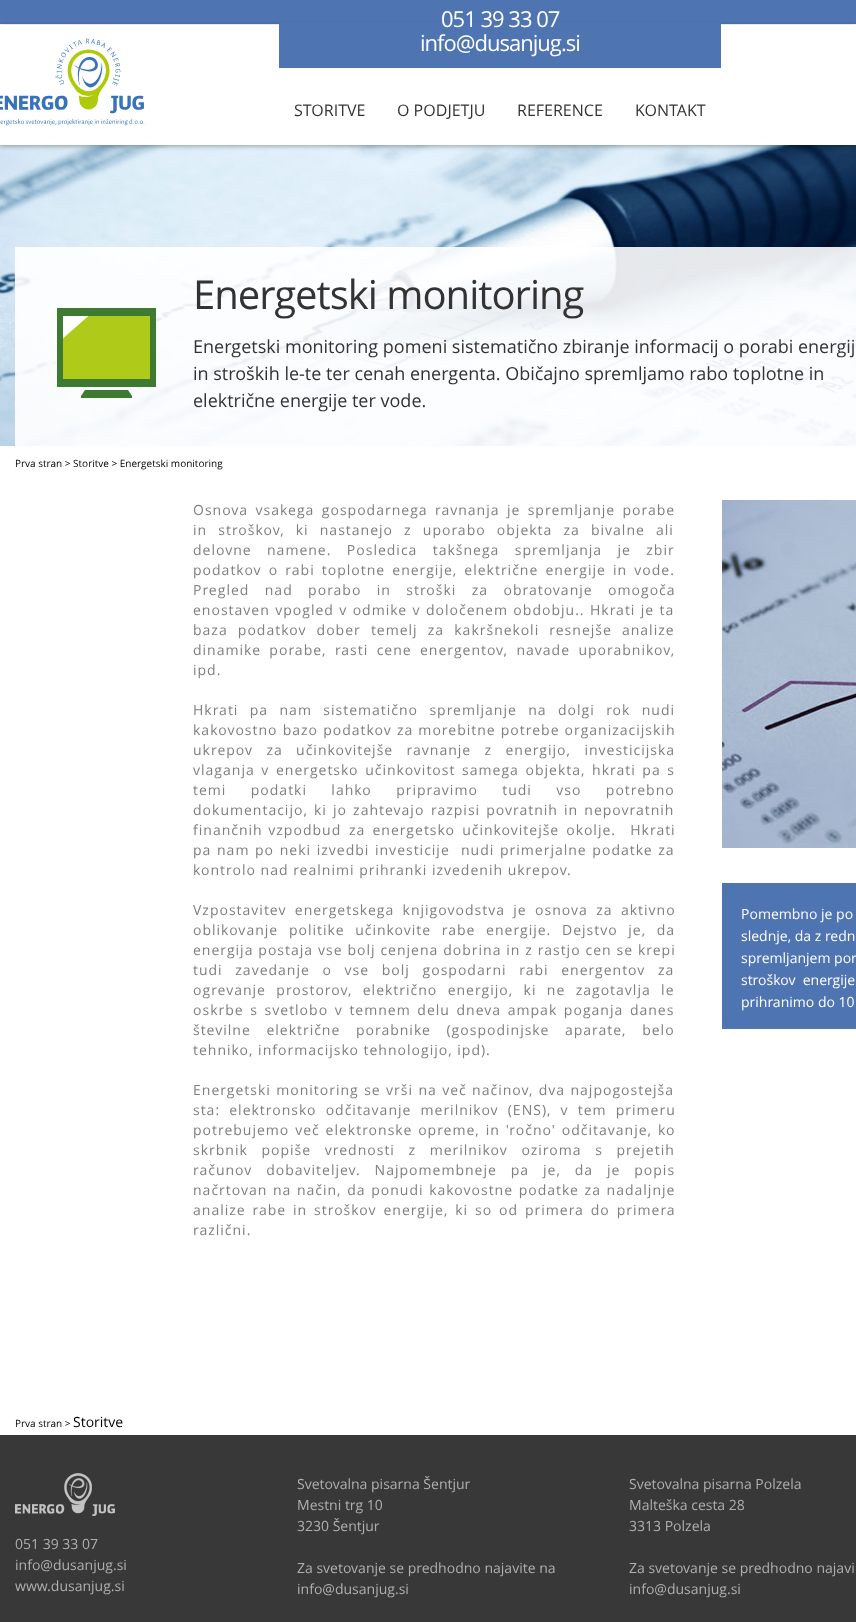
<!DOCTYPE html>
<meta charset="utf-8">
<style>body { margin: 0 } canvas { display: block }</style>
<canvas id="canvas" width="856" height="1622"></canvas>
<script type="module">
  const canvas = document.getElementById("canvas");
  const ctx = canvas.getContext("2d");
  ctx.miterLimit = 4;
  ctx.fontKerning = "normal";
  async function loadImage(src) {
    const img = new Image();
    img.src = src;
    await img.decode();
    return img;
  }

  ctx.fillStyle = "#ffffff";
  ctx.fillRect(0, 0, 856, 1622);
  ctx.fillStyle = "#4e74b2";
  ctx.fillRect(0, 0, 856, 24);
  ctx.drawImage(await loadImage("img1.png"), 0, 145, 856, 301);
  ctx.save();
  ctx.beginPath();
  ctx.moveTo(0, 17);
  ctx.lineTo(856, 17);
  ctx.lineTo(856, 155);
  ctx.lineTo(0, 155);
  ctx.closePath();
  ctx.moveTo(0, 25);
  ctx.lineTo(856, 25);
  ctx.lineTo(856, 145);
  ctx.lineTo(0, 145);
  ctx.closePath();
  ctx.clip("evenodd");
  ctx.fillStyle = "rgba(0, 0, 0, 0.35)";
  ctx.filter = "blur(2.5px)";
  ctx.beginPath();
  ctx.rect(0, 26, 856, 120);
  ctx.fill();
  ctx.filter = "none";
  ctx.restore();
  ctx.fillRect(279, 22, 442, 46);
  ctx.letterSpacing = "-1px";
  ctx.font = "22px Open Sans";
  ctx.fillStyle = "#ffffff";
  ctx.fillText("051 39 33 07", 441, 27);
  ctx.fillText("info@dusanjug.si", 420, 51);
  ctx.fillStyle = "rgba(255, 255, 255, 0.9)";
  ctx.fillRect(15, 247, 841, 199);
  ctx.font = "40px Open Sans";
  ctx.fillStyle = "#333333";
  ctx.fillText("Energetski monitoring", 193, 309);
  ctx.fillStyle = "#ffffff";
  ctx.fillRect(63, 316, 26, 23);
  ctx.fillStyle = "#afca19";
  ctx.beginPath();
  ctx.moveTo(92, 312);
  ctx.lineTo(93, 312);
  ctx.lineTo(60, 341);
  ctx.lineTo(60, 379);
  ctx.lineTo(152, 379);
  ctx.lineTo(152, 312);
  ctx.closePath();
  ctx.fill();
  ctx.fillStyle = "#3e7a31";
  ctx.beginPath();
  ctx.moveTo(57, 308);
  ctx.lineTo(57, 387);
  ctx.lineTo(156, 387);
  ctx.lineTo(156, 308);
  ctx.closePath();
  ctx.moveTo(63, 316);
  ctx.lineTo(150, 316);
  ctx.lineTo(150, 379);
  ctx.lineTo(63, 379);
  ctx.closePath();
  ctx.moveTo(85, 390);
  ctx.lineTo(81, 396);
  ctx.lineTo(81, 398);
  ctx.lineTo(132, 398);
  ctx.lineTo(132, 396);
  ctx.lineTo(128, 390);
  ctx.closePath();
  ctx.fill();
  ctx.letterSpacing = "0px";
  ctx.font = "18px Open Sans";
  ctx.fillStyle = "#333333";
  ctx.fillText("Energetski monitoring pomeni sistematično zbiranje informacij o porabi energij", 193, 353);
  ctx.fillText("in stroških le-te ter cenah energenta. Običajno spremljamo rabo toplotne in", 193, 380);
  ctx.fillText("električne energije ter vode.", 193, 407);
  ctx.font = "10px Open Sans";
  ctx.fillStyle = "#000000";
  ctx.fillText("Prva stran > Storitve > Energetski monitoring", 15, 467);
  ctx.letterSpacing = "1px";
  ctx.wordSpacing = "2.75px";
  ctx.font = "14px Open Sans";
  ctx.fillStyle = "#7f7f7f";
  ctx.fillText("Osnova vsakega gospodarnega ravnanja je spremljanje porabe", 193, 515);
  ctx.wordSpacing = "6.5px";
  ctx.fillText("in stroškov, ki nastanejo z uporabo objekta za bivalne ali", 193, 535);
  ctx.wordSpacing = "10.75px";
  ctx.fillText("delovne namene. Posledica takšnega spremljanja je zbir", 193, 555);
  ctx.wordSpacing = "2.5px";
  ctx.fillText("podatkov o rabi toplotne energije, električne energije in vode.", 193, 575);
  ctx.wordSpacing = "10.75px";
  ctx.fillText("Pregled nad porabo in stroški za obratovanje omogoča", 193, 595);
  ctx.wordSpacing = "0.75px";
  ctx.fillText("enostaven vpogled v odmike v določenem obdobju.. Hkrati je ta", 193, 615);
  ctx.wordSpacing = "5.5px";
  ctx.fillText("baza podatkov dober temelj za kakršnekoli resnejše analize", 193, 635);
  ctx.wordSpacing = "3.75px";
  ctx.fillText("dinamike porabe, rasti cene energentov, navade uporabnikov,", 193, 655);
  ctx.wordSpacing = "0px";
  ctx.fillText("ipd.", 193, 675);
  ctx.wordSpacing = "6.75px";
  ctx.fillText("Hkrati pa nam sistematično spremljanje na dolgi rok nudi", 193, 715);
  ctx.wordSpacing = "0.5px";
  ctx.fillText("kakovostno bazo podatkov za morebitne potrebe organizacijskih", 193, 735);
  ctx.wordSpacing = "8.75px";
  ctx.fillText("ukrepov za učinkovitejše ravnanje z energijo, investicijska", 193, 755);
  ctx.wordSpacing = "2px";
  ctx.fillText("vlaganja v energetsko učinkovitost samega objekta, hkrati pa s", 193, 775);
  ctx.wordSpacing = "19.75px";
  ctx.fillText("temi podatki lahko pripravimo tudi vso potrebno", 193, 795);
  ctx.wordSpacing = "1.5px";
  ctx.fillText("dokumentacijo, ki jo zahtevajo", 193, 815);
  ctx.fillText("razpisi povratnih in nepovratnih", 431, 815);
  ctx.wordSpacing = "1px";
  ctx.fillText("finančnih vzpodbud", 193, 835);
  ctx.wordSpacing = "2.5px";
  ctx.fillText("za energetsko učinkovitejše okolje.  Hkrati", 349, 835);
  ctx.wordSpacing = "1px";
  ctx.fillText("pa nam po neki izvedbi investicije  nudi primerjalne podatke za", 193, 855);
  ctx.wordSpacing = "0px";
  ctx.fillText("kontrolo nad realnimi prihranki izvedenih ukrepov.", 193, 875);
  ctx.wordSpacing = "3.75px";
  ctx.fillText("Vzpostavitev energetskega knjigovodstva je osnova za aktivno", 193, 915);
  ctx.wordSpacing = "0px";
  ctx.fillText("oblikovanje", 193, 935);
  ctx.wordSpacing = "6px";
  ctx.fillText("politike učinkovite rabe energije. Dejstvo je, da", 289, 935);
  ctx.wordSpacing = "0.25px";
  ctx.fillText("energija postaja vse bolj cenjena dobrina in z rastjo cen se krepi", 193, 955);
  ctx.wordSpacing = "8px";
  ctx.fillText("tudi zavedanje o vse bolj gospodarni rabi energentov za", 193, 975);
  ctx.wordSpacing = "5.75px";
  ctx.fillText("ogrevanje prostorov, električno energijo, ki ne zagotavlja le", 193, 995);
  ctx.wordSpacing = "2px";
  ctx.fillText("oskrbe s svetlobo v temnem delu dneva ampak poganja danes", 193, 1015);
  ctx.wordSpacing = "11px";
  ctx.fillText("številne električne porabnike (gospodinjske aparate, belo", 193, 1035);
  ctx.wordSpacing = "0px";
  ctx.fillText("tehniko, informacijsko tehnologijo, ipd).", 193, 1055);
  ctx.wordSpacing = "0.75px";
  ctx.fillText("Energetski monitoring se vrši na več načinov, dva najpogostejša", 193, 1095);
  ctx.wordSpacing = "4.5px";
  ctx.fillText("sta: elektronsko odčitavanje merilnikov (ENS), v tem primeru", 193, 1115);
  ctx.wordSpacing = "1.25px";
  ctx.fillText("potrebujemo več elektronske opreme, in 'ročno' odčitavanje, ko", 193, 1135);
  ctx.wordSpacing = "9px";
  ctx.fillText("skrbnik popiše vrednosti z merilnikov oziroma s prejetih", 193, 1155);
  ctx.wordSpacing = "9.25px";
  ctx.fillText("računov dobaviteljev. Najpomembneje pa je, da je popis", 193, 1175);
  ctx.wordSpacing = "1px";
  ctx.fillText("načrtovan na način, da ponudi kakovostne podatke za nadaljnje", 193, 1195);
  ctx.wordSpacing = "2.25px";
  ctx.fillText("analize rabe in stroškov energije, ki so od primera do primera", 193, 1215);
  ctx.wordSpacing = "0px";
  ctx.fillText("različni.", 193, 1235);
  ctx.drawImage(await loadImage("img2.png"), 722, 500, 134, 348);
  ctx.fillStyle = "#4e74b2";
  ctx.fillRect(722, 883, 134, 146);
  ctx.letterSpacing = "0px";
  ctx.fillStyle = "#ffffff";
  ctx.fillText("Pomembno je po", 741, 919);
  ctx.fillText("slednje, da z redn", 741, 941);
  ctx.fillText("spremljanjem por", 741, 963);
  ctx.fillText("stroškov  energije", 741, 985);
  ctx.fillText("prihranimo do 10", 741, 1007);
  ctx.font = "10px Open Sans";
  ctx.fillStyle = "#000000";
  ctx.fillText("Prva stran >", 15, 1427);
  ctx.font = "14px Open Sans";
  ctx.fillText("Storitve", 73, 1427);
  ctx.drawImage(await loadImage("img3.png"), 0, 38, 145, 88);
  ctx.font = "16px Open Sans";
  ctx.fillStyle = "#333333";
  ctx.fillText("STORITVE", 294, 116);
  ctx.fillText("O PODJETJU", 397, 116);
  ctx.fillText("REFERENCE", 517, 116);
  ctx.fillText("KONTAKT", 635, 116);
  ctx.fillStyle = "#383838";
  ctx.fillRect(0, 1435, 856, 187);
  ctx.drawImage(await loadImage("img4.png"), 15, 1473, 100, 43);
  ctx.font = "14px Open Sans";
  ctx.fillStyle = "#afafaf";
  ctx.fillText("Svetovalna pisarna Šentjur", 297, 1489);
  ctx.fillText("Mestni trg 10", 297, 1510);
  ctx.fillText("3230 Šentjur", 297, 1531);
  ctx.fillText("Za svetovanje se predhodno najavite na", 297, 1573);
  ctx.fillText("info@dusanjug.si", 297, 1594);
  ctx.fillText("Svetovalna pisarna Polzela", 629, 1489);
  ctx.fillText("Malteška cesta 28", 629, 1510);
  ctx.fillText("3313 Polzela", 629, 1531);
  ctx.fillText("Za svetovanje se predhodno najavi", 629, 1573);
  ctx.fillText("info@dusanjug.si", 629, 1594);
  ctx.fillText("051 39 33 07", 15, 1549);
  ctx.fillText("info@dusanjug.si", 15, 1570);
  ctx.fillText("www.dusanjug.si", 15, 1591);
</script>
